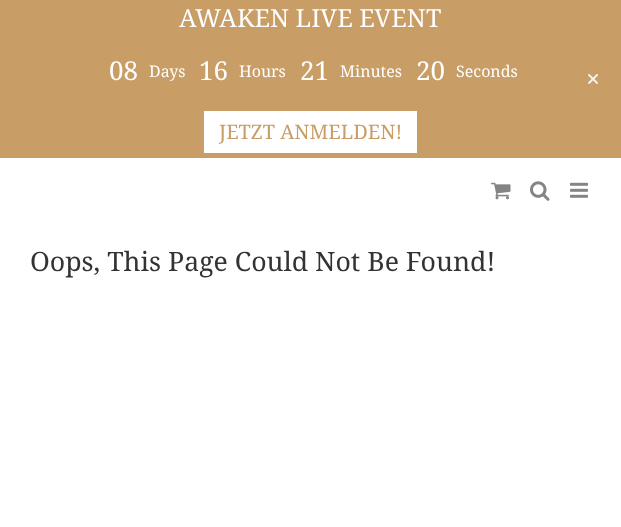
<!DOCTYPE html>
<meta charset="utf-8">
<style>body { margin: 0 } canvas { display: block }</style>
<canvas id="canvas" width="621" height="527"></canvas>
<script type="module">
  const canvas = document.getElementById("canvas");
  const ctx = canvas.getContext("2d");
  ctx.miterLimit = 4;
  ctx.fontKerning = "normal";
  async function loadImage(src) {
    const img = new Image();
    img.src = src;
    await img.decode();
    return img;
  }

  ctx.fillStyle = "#c89d66";
  ctx.fillRect(0, 0, 621, 527);
  ctx.font = "25px Noto Serif";
  ctx.fillStyle = "#ffffff";
  ctx.fillText("AWAKEN LIVE EVENT", 179, 27);
  ctx.font = "26px Noto Serif";
  ctx.fillText("08", 109, 80);
  ctx.font = "16px Noto Serif";
  ctx.fillText("Days", 149, 77);
  ctx.font = "26px Noto Serif";
  ctx.fillText("16", 199, 80);
  ctx.font = "16px Noto Serif";
  ctx.fillText("Hours", 239, 77);
  ctx.font = "26px Noto Serif";
  ctx.fillText("21", 300, 80);
  ctx.font = "16px Noto Serif";
  ctx.fillText("Minutes", 340, 77);
  ctx.font = "26px Noto Serif";
  ctx.fillText("20", 416, 80);
  ctx.font = "16px Noto Serif";
  ctx.fillText("Seconds", 456, 77);
  ctx.drawImage(await loadImage("img1.png"), 588, 74, 10, 10);
  ctx.fillRect(204, 111, 213, 42);
  ctx.font = "20px Noto Serif";
  ctx.fillStyle = "#c89d66";
  ctx.fillText("JETZT ANMELDEN!", 219, 139);
  ctx.fillStyle = "#ffffff";
  ctx.fillRect(0, 158, 621, 369);
  ctx.drawImage(await loadImage("img2.png"), 491, 182, 20, 18);
  ctx.drawImage(await loadImage("img3.png"), 530, 181, 20, 20);
  ctx.drawImage(await loadImage("img4.png"), 570, 182, 18, 16);
  ctx.font = "26.7px Noto Serif";
  ctx.fillStyle = "#333333";
  ctx.fillText("Oops, This Page Could Not Be Found!", 30, 271);
</script>
